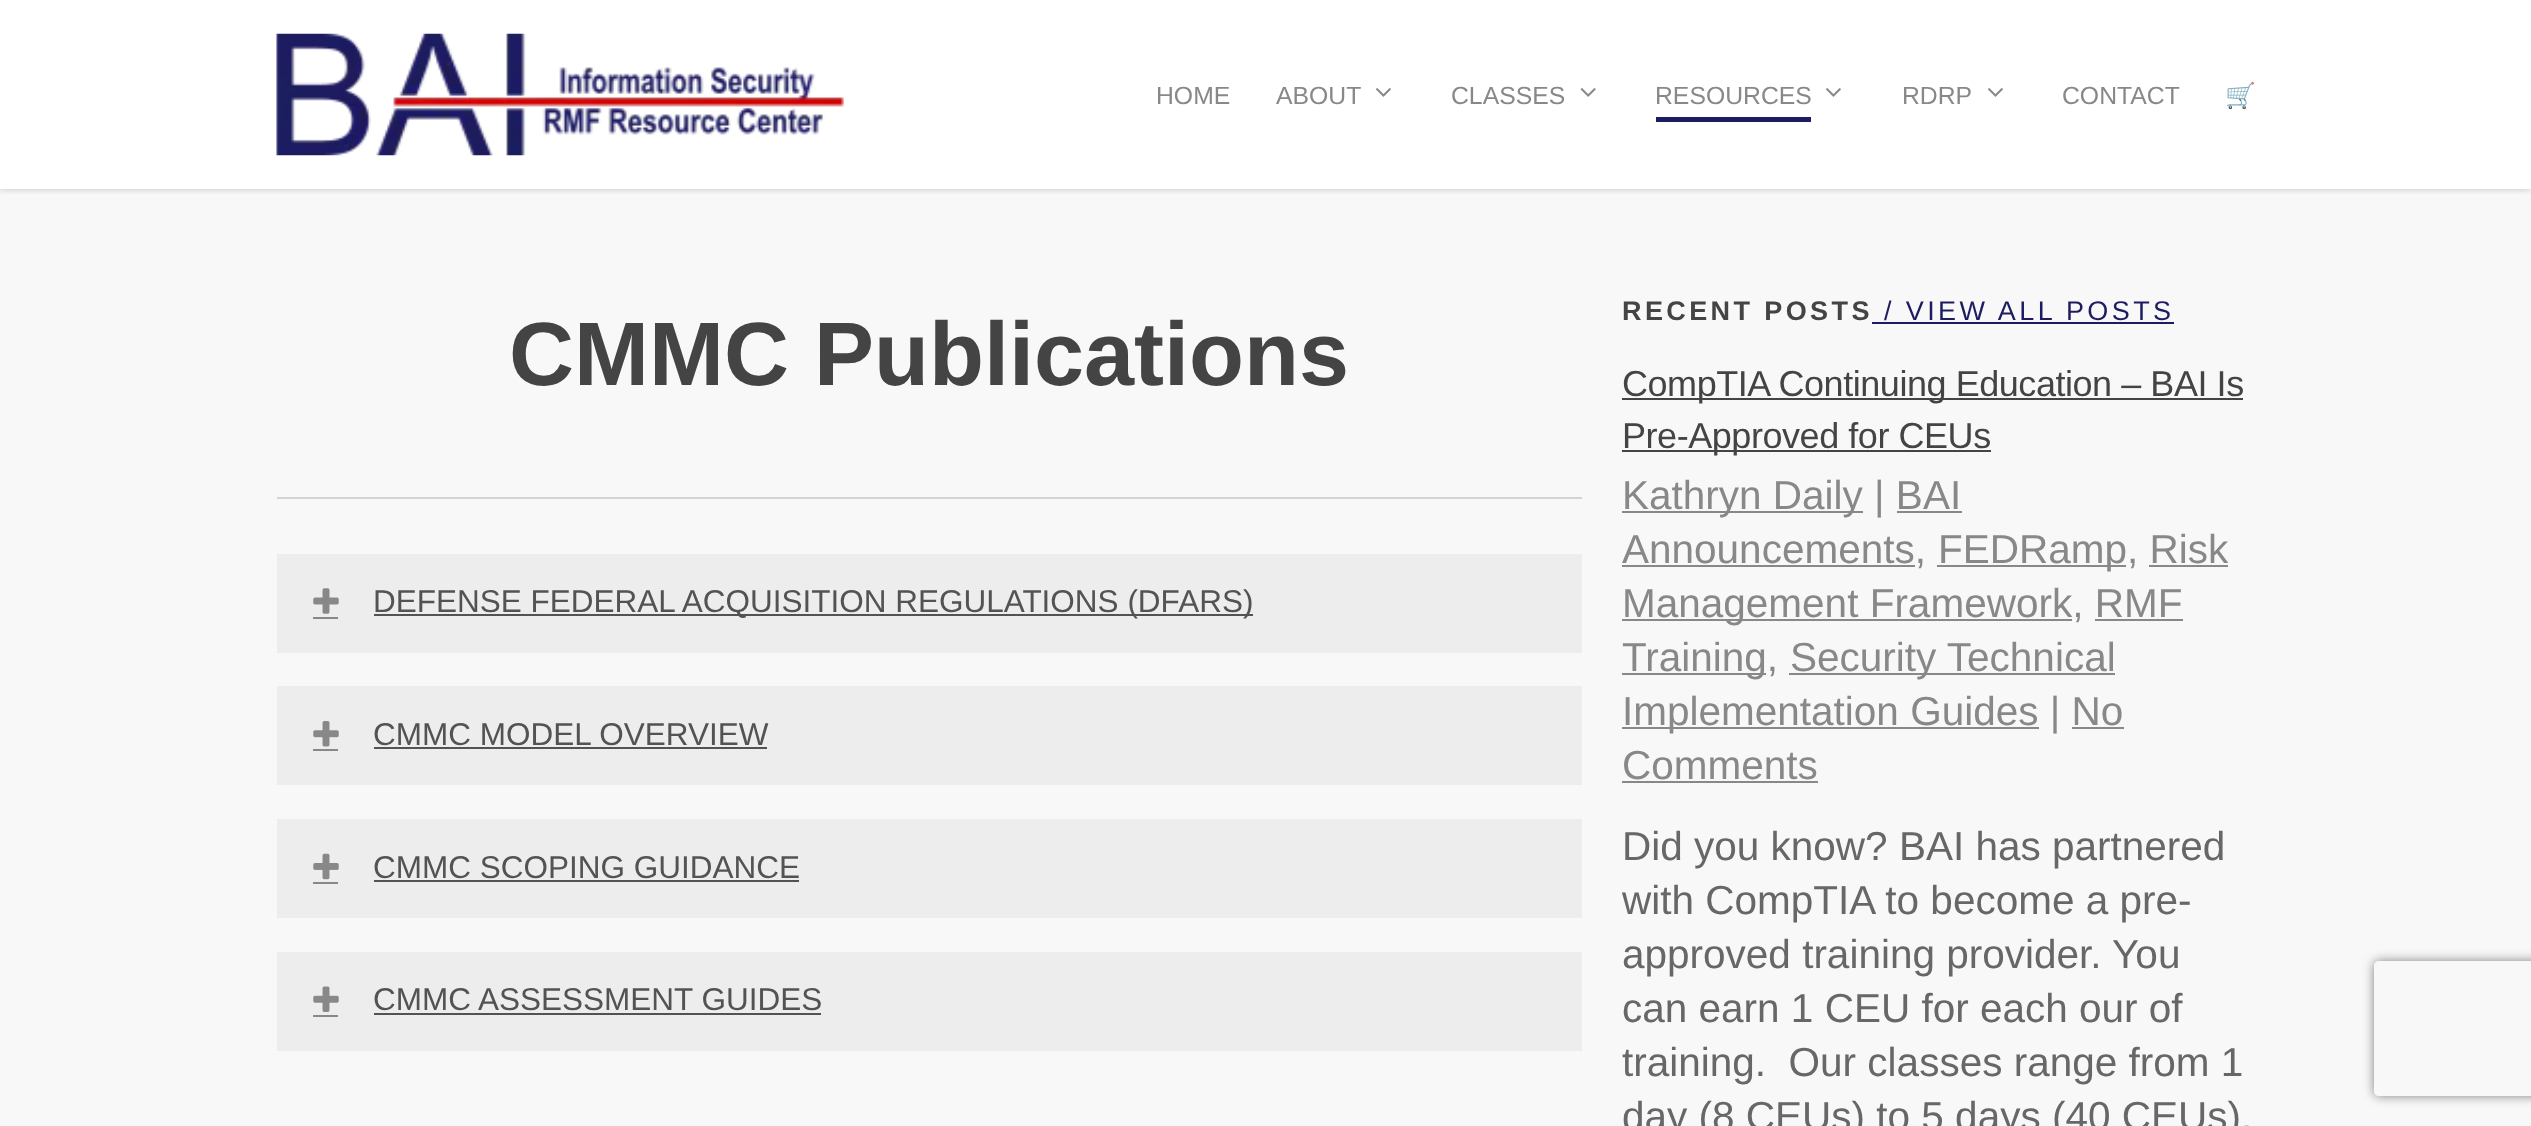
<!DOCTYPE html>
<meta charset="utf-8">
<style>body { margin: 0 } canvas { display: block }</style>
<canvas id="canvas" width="2531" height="1126"></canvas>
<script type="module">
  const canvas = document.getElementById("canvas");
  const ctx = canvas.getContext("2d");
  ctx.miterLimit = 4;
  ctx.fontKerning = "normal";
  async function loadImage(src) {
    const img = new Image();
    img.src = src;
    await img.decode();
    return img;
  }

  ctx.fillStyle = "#ffffff";
  ctx.fillRect(0, 0, 2531, 1126);
  ctx.fillStyle = "#f8f8f8";
  ctx.fillRect(0, 189, 2531, 937);
  ctx.save();
  ctx.beginPath();
  ctx.rect(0, 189, 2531, 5);
  ctx.clip();
  ctx.fillStyle = "rgba(0, 0, 0, 0.22)";
  ctx.filter = "blur(3.5px)";
  ctx.beginPath();
  ctx.rect(0, 0, 2531, 189);
  ctx.fill();
  ctx.filter = "none";
  ctx.restore();
  ctx.drawImage(await loadImage("img1.png"), 276, 33, 568, 123);
  ctx.font = "24.75px Liberation Sans";
  ctx.fillStyle = "#888888";
  ctx.fillText("HOME", 1156, 104);
  ctx.fillText("ABOUT", 1276, 104);
  ctx.drawImage(await loadImage("img2.png"), 1376, 88, 15, 9);
  ctx.fillText("CLASSES", 1451, 104);
  ctx.drawImage(await loadImage("img3.png"), 1580, 88, 16, 9);
  ctx.fillText("RESOURCES", 1655, 104);
  ctx.fillStyle = "#1d1c60";
  ctx.fillRect(1656, 117, 155, 5);
  ctx.drawImage(await loadImage("img2.png"), 1826, 88, 15, 9);
  ctx.fillStyle = "#888888";
  ctx.fillText("RDRP", 1902, 104);
  ctx.drawImage(await loadImage("img2.png"), 1988, 88, 15, 9);
  ctx.fillText("CONTACT", 2062, 104);
  ctx.font = "24.75px Noto Color Emoji";
  ctx.fillText("🛒", 2225, 104);
  ctx.fillStyle = "#d3d3d3";
  ctx.fillRect(277, 497, 1305, 2);
  ctx.font = "bold 90px Liberation Sans";
  ctx.fillStyle = "#444444";
  ctx.fillText("CMMC Publications", 509, 385);
  ctx.fillStyle = "#ededed";
  ctx.fillRect(277, 554, 1305, 99);
  ctx.drawImage(await loadImage("img4.png"), 313, 588, 26, 26);
  ctx.fillStyle = "#888888";
  ctx.fillRect(313, 617, 25, 2);
  ctx.fillStyle = "#535353";
  ctx.fillRect(374, 614, 879, 2);
  ctx.font = "31.5px Liberation Sans";
  ctx.fillText("DEFENSE FEDERAL ACQUISITION REGULATIONS (DFARS)", 373, 612);
  ctx.fillStyle = "#ededed";
  ctx.fillRect(277, 686, 1305, 99);
  ctx.drawImage(await loadImage("img5.png"), 313, 721, 26, 26);
  ctx.fillStyle = "#888888";
  ctx.fillRect(313, 749, 25, 2);
  ctx.fillStyle = "#535353";
  ctx.fillText("CMMC MODEL OVERVIEW", 373, 745);
  ctx.fillRect(374, 747, 393, 2);
  ctx.fillStyle = "#ededed";
  ctx.fillRect(277, 819, 1305, 99);
  ctx.drawImage(await loadImage("img6.png"), 313, 853, 26, 27);
  ctx.fillStyle = "#888888";
  ctx.fillRect(313, 882, 25, 2);
  ctx.fillStyle = "#535353";
  ctx.fillText("CMMC SCOPING GUIDANCE", 373, 878);
  ctx.fillRect(374, 880, 425, 2);
  ctx.fillStyle = "#ededed";
  ctx.fillRect(277, 952, 1305, 99);
  ctx.drawImage(await loadImage("img7.png"), 313, 986, 26, 26);
  ctx.fillStyle = "#888888";
  ctx.fillRect(313, 1015, 25, 2);
  ctx.fillStyle = "#535353";
  ctx.fillText("CMMC ASSESSMENT GUIDES", 373, 1010);
  ctx.fillRect(374, 1013, 447, 2);
  ctx.letterSpacing = "3.4px";
  ctx.font = "bold 27px Liberation Sans";
  ctx.fillStyle = "#444444";
  ctx.fillText("RECENT POSTS", 1622, 320);
  ctx.font = "27px Liberation Sans";
  ctx.fillStyle = "#1d1c60";
  ctx.fillText("/ VIEW ALL POSTS", 1884, 320);
  ctx.fillRect(1872, 322, 302, 2);
  ctx.fillStyle = "#444444";
  ctx.fillRect(1622, 398, 621, 2);
  ctx.letterSpacing = "-0.45px";
  ctx.font = "36px Liberation Sans";
  ctx.fillText("CompTIA Continuing Education – BAI Is", 1622, 396);
  ctx.fillRect(1622, 450, 369, 2);
  ctx.fillText("Pre-Approved for CEUs", 1622, 448);
  ctx.fillStyle = "#888888";
  ctx.fillRect(1622, 511, 241, 2);
  ctx.letterSpacing = "0px";
  ctx.font = "40.5px Liberation Sans";
  ctx.fillText("Kathryn Daily | BAI", 1622, 509);
  ctx.fillRect(1622, 565, 293, 2);
  ctx.fillText("Announcements,", 1622, 563);
  ctx.fillRect(1897, 511, 65, 2);
  ctx.fillRect(1937, 565, 189, 2);
  ctx.fillText("FEDRamp, Risk", 1938, 563);
  ctx.fillRect(2149, 565, 79, 2);
  ctx.fillRect(1622, 619, 450, 2);
  ctx.fillText("Management Framework, RMF", 1622, 617);
  ctx.fillRect(2095, 619, 88, 2);
  ctx.fillRect(1622, 673, 144, 2);
  ctx.fillText("Training,", 1622, 671);
  ctx.fillRect(1789, 673, 326, 2);
  ctx.fillText("Security Technical", 1790, 671);
  ctx.fillRect(1622, 727, 417, 2);
  ctx.fillText("Implementation Guides | No", 1622, 725);
  ctx.fillText("Comments", 1622, 779);
  ctx.fillRect(2072, 727, 52, 2);
  ctx.fillRect(1622, 781, 196, 2);
  ctx.fillStyle = "#676767";
  ctx.fillText("Did you know? BAI has partnered", 1622, 860);
  ctx.fillText("with CompTIA to become a pre-", 1622, 914);
  ctx.fillText("approved training provider. You", 1622, 968);
  ctx.fillText("can earn 1 CEU for each our of", 1622, 1022);
  ctx.fillText("training.  Our classes range from 1", 1622, 1076);
  ctx.fillText("day (8 CEUs) to 5 days (40 CEUs).", 1622, 1130);
  ctx.save();
  ctx.beginPath();
  ctx.moveTo(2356, 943);
  ctx.lineTo(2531, 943);
  ctx.lineTo(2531, 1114);
  ctx.lineTo(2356, 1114);
  ctx.closePath();
  ctx.moveTo(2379, 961);
  ctx.lineTo(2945, 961);
  ctx.bezierCurveTo(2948, 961, 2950, 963, 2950, 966);
  ctx.lineTo(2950, 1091);
  ctx.bezierCurveTo(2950, 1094, 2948, 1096, 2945, 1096);
  ctx.lineTo(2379, 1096);
  ctx.bezierCurveTo(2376, 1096, 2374, 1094, 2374, 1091);
  ctx.lineTo(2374, 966);
  ctx.bezierCurveTo(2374, 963, 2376, 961, 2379, 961);
  ctx.closePath();
  ctx.clip("evenodd");
  ctx.fillStyle = "#808080";
  ctx.filter = "blur(5.5px)";
  ctx.beginPath();
  ctx.roundRect(2374, 961, 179, 135, 5);
  ctx.fill();
  ctx.filter = "none";
  ctx.restore();
</script>
